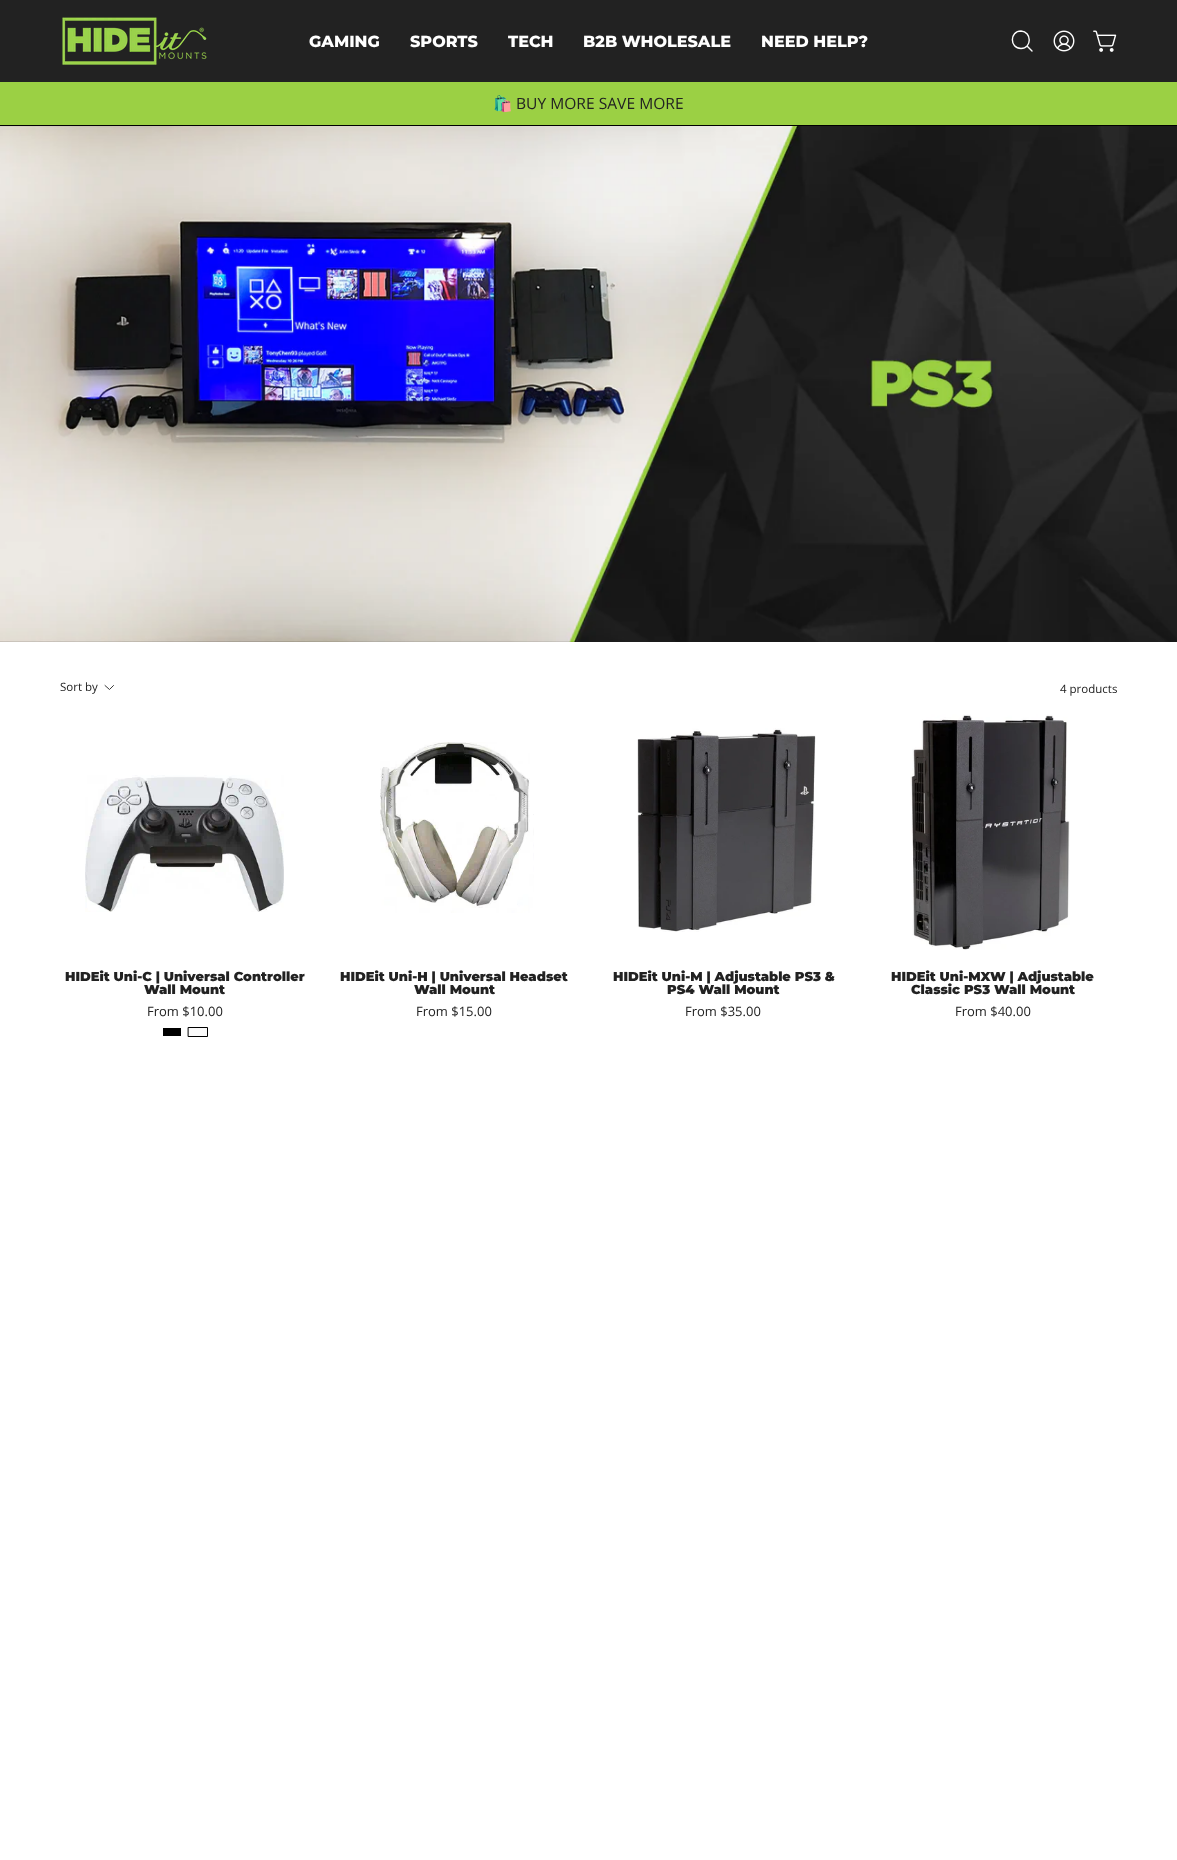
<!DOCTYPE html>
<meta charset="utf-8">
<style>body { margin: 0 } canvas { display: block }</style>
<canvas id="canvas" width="1177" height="1860"></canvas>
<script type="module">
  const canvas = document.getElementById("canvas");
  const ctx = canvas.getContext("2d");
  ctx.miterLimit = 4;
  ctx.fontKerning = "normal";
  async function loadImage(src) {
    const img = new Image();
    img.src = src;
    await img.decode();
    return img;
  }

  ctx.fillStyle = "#222222";
  ctx.fillRect(0, 0, 1177, 1860);
  ctx.drawImage(await loadImage("img1.png"), 62, 17, 145, 48);
  ctx.font = "800 16px Montserrat";
  ctx.fillStyle = "#ffffff";
  ctx.fillText("GAMING", 309, 47);
  ctx.fillText("SPORTS", 410, 47);
  ctx.fillText("TECH", 508, 47);
  ctx.fillText("B2B WHOLESALE", 583, 47);
  ctx.fillText("NEED HELP?", 761, 47);
  ctx.beginPath();
  ctx.moveTo(1021, 48.5);
  ctx.bezierCurveTo(1032, 48.5, 1032, 31.5, 1021, 31);
  ctx.bezierCurveTo(1009.5, 31, 1009.5, 48.5, 1021, 48.5);
  ctx.closePath();
  ctx.moveTo(1027, 46);
  ctx.lineTo(1032, 51);
  ctx.strokeStyle = "#ffffff";
  ctx.lineWidth = 1.4;
  ctx.lineCap = "round";
  ctx.lineJoin = "round";
  ctx.stroke();
  ctx.drawImage(await loadImage("img2.png"), 1053, 30, 22, 22);
  ctx.drawImage(await loadImage("img3.png"), 1093, 30, 24, 22);
  ctx.fillStyle = "#9bd044";
  ctx.fillRect(0, 82, 1177, 43);
  ctx.fillStyle = "#000000";
  ctx.fillRect(0, 125, 1177, 1);
  ctx.font = "15.6px Noto Color Emoji";
  ctx.fillStyle = "#222222";
  ctx.fillText("🛍️", 493, 109);
  ctx.font = "15.6px Open Sans";
  ctx.fillText("BUY MORE SAVE MORE", 516, 109);
  ctx.drawImage(await loadImage("img4.png"), 0, 126, 1177, 516);
  ctx.fillStyle = "#ffffff";
  ctx.fillRect(0, 642, 1177, 1218);
  ctx.font = "11.5px Open Sans";
  ctx.fillStyle = "#222222";
  ctx.fillText("Sort by", 60, 691);
  ctx.beginPath();
  ctx.moveTo(113.5, 685.5);
  ctx.lineTo(109.5, 689.5);
  ctx.lineTo(105, 685.5);
  ctx.strokeStyle = "#222222";
  ctx.lineWidth = 0.9;
  ctx.stroke();
  ctx.fillText("4 products", 1060, 693);
  ctx.drawImage(await loadImage("img5.png"), 85, 775, 199, 137);
  ctx.font = "900 13px Montserrat";
  ctx.fillText("HIDEit Uni-C | Universal Controller", 65, 981);
  ctx.fillText("Wall Mount", 144, 994);
  ctx.font = "13px Open Sans";
  ctx.fillText("From $10.00", 147, 1016);
  ctx.fillStyle = "#000000";
  ctx.fillRect(163, 1028, 18, 8);
  ctx.fillStyle = "#fafafa";
  ctx.beginPath();
  ctx.rect(188.5, 1027.5, 19, 9);
  ctx.fill();
  ctx.strokeStyle = "#000000";
  ctx.lineWidth = 1;
  ctx.lineJoin = "miter";
  ctx.stroke();
  ctx.drawImage(await loadImage("img6.png"), 380, 742, 154, 171);
  ctx.font = "900 13px Montserrat";
  ctx.fillStyle = "#222222";
  ctx.fillText("HIDEit Uni-H | Universal Headset", 340, 981);
  ctx.fillText("Wall Mount", 414, 994);
  ctx.font = "13px Open Sans";
  ctx.fillText("From $15.00", 416, 1016);
  ctx.drawImage(await loadImage("img7.png"), 637, 728, 179, 204);
  ctx.font = "900 13px Montserrat";
  ctx.fillText("HIDEit Uni-M | Adjustable PS3 &", 613, 981);
  ctx.fillText("PS4 Wall Mount", 667, 994);
  ctx.font = "13px Open Sans";
  ctx.fillText("From $35.00", 685, 1016);
  ctx.drawImage(await loadImage("img8.png"), 910, 714, 160, 236);
  ctx.font = "900 13px Montserrat";
  ctx.fillText("HIDEit Uni-MXW | Adjustable", 891, 981);
  ctx.fillText("Classic PS3 Wall Mount", 911, 994);
  ctx.font = "13px Open Sans";
  ctx.fillText("From $40.00", 955, 1016);
</script>
